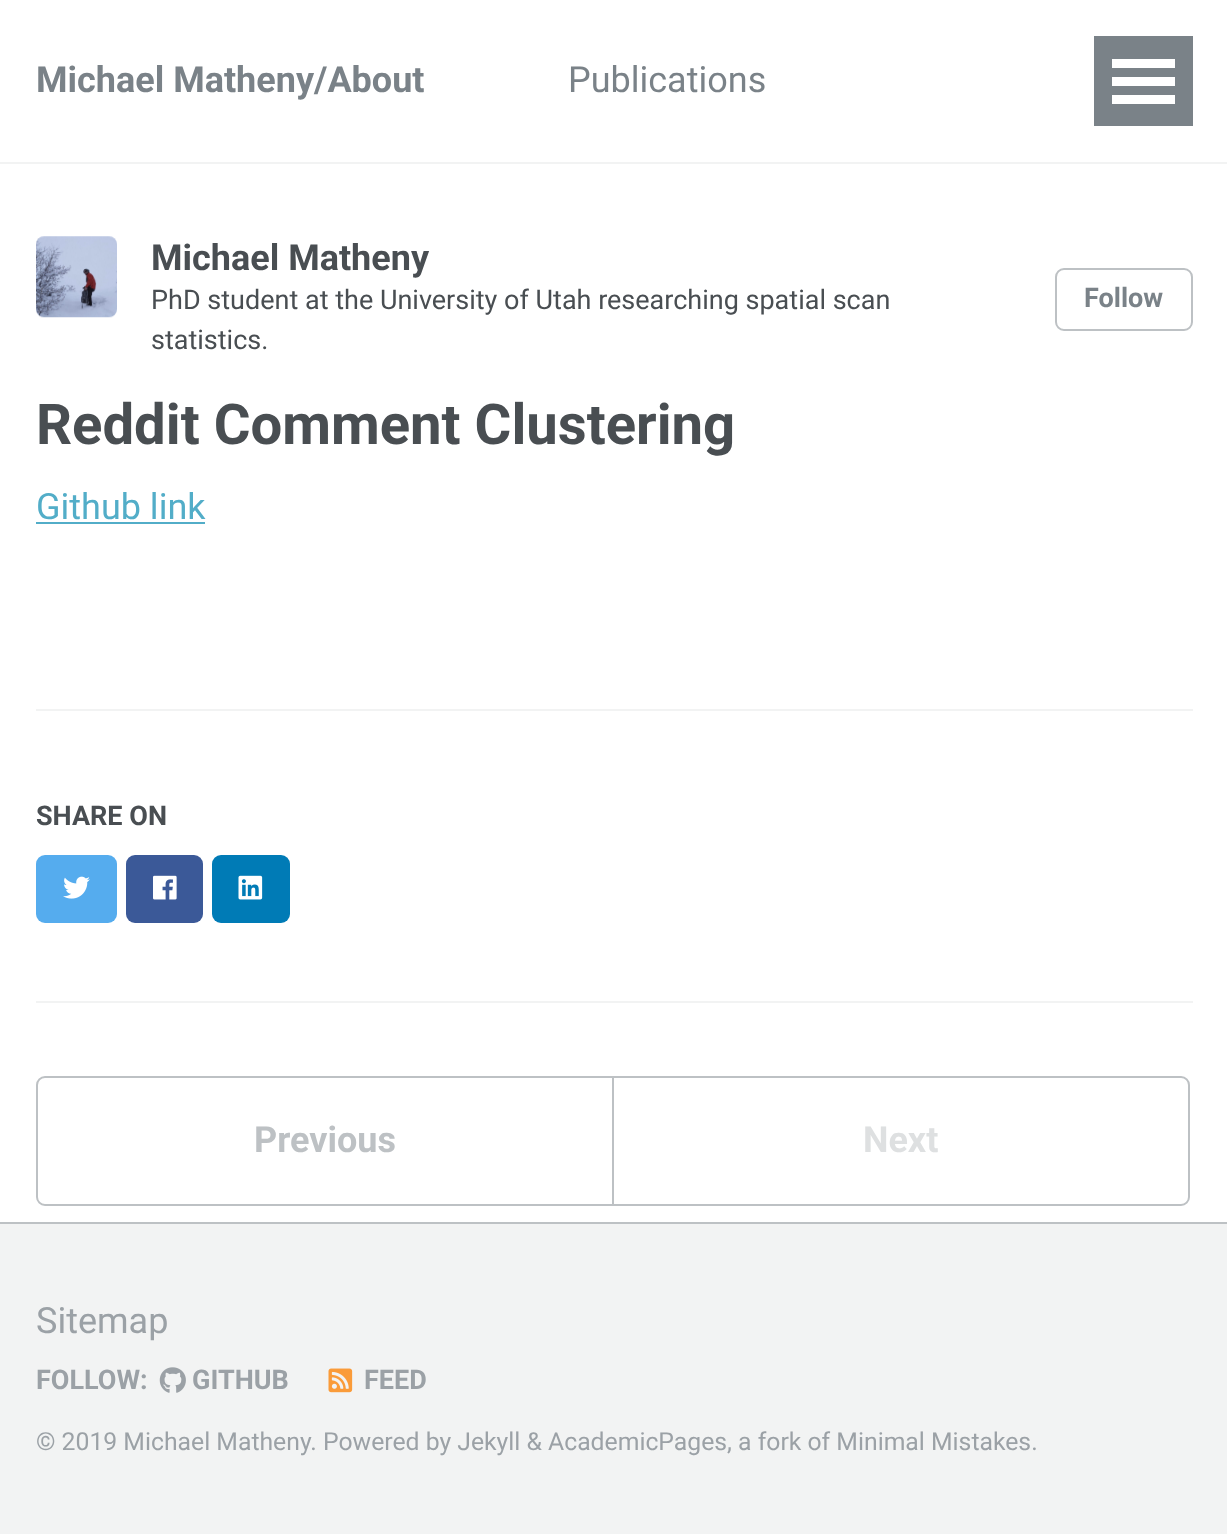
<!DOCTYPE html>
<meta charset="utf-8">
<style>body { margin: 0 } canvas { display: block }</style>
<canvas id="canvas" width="1227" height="1534"></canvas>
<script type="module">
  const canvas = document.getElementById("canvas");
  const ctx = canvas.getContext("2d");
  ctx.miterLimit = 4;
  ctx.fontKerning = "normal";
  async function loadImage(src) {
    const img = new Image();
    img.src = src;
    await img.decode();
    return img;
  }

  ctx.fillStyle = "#ffffff";
  ctx.fillRect(0, 0, 1227, 1534);
  ctx.fillStyle = "#f2f3f3";
  ctx.fillRect(0, 162, 1227, 2);
  ctx.font = "bold 36px Roboto";
  ctx.fillStyle = "#7a8288";
  ctx.fillText("Michael Matheny/About", 36, 92);
  ctx.font = "36px Roboto";
  ctx.fillText("Publications", 568, 92);
  ctx.fillRect(1094, 36, 99, 90);
  ctx.fillStyle = "#ffffff";
  ctx.fillRect(1112, 77, 63, 9);
  ctx.fillRect(1112, 59, 63, 9);
  ctx.fillRect(1112, 95, 63, 9);
  ctx.drawImage(await loadImage("img1.png"), 36, 236, 81, 82);
  ctx.font = "bold 36px Roboto";
  ctx.fillStyle = "#494e52";
  ctx.fillText("Michael Matheny", 151, 270);
  ctx.font = "27px Roboto";
  ctx.fillText("PhD student at the University of Utah researching spatial scan", 151, 309);
  ctx.fillText("statistics.", 151, 349);
  ctx.beginPath();
  ctx.roundRect(1056, 269, 136, 61, 8);
  ctx.strokeStyle = "#bdc1c4";
  ctx.lineWidth = 2;
  ctx.stroke();
  ctx.font = "bold 27px Roboto";
  ctx.fillStyle = "#7a8288";
  ctx.fillText("Follow", 1084, 307);
  ctx.font = "bold 56.25px Roboto";
  ctx.fillStyle = "#494e52";
  ctx.fillText("Reddit Comment Clustering", 36, 444);
  ctx.font = "36px Roboto";
  ctx.fillStyle = "#52adc8";
  ctx.fillText("Github link", 36, 519);
  ctx.fillRect(36, 522, 169, 2);
  ctx.fillStyle = "#f2f3f3";
  ctx.fillRect(36, 709, 1157, 2);
  ctx.font = "bold 27px Roboto";
  ctx.fillStyle = "#494e52";
  ctx.fillText("SHARE ON", 36, 825);
  ctx.fillStyle = "#55acee";
  ctx.beginPath();
  ctx.roundRect(36, 855, 81, 68, 9);
  ctx.fill();
  ctx.drawImage(await loadImage("img2.png"), 63, 876, 27, 23);
  ctx.fillStyle = "#3b5998";
  ctx.beginPath();
  ctx.roundRect(126, 855, 77, 68, 9);
  ctx.fill();
  ctx.drawImage(await loadImage("img3.png"), 153, 875, 24, 25);
  ctx.fillStyle = "#007bb6";
  ctx.beginPath();
  ctx.roundRect(212, 855, 78, 68, 9);
  ctx.fill();
  ctx.drawImage(await loadImage("img4.png"), 238, 875, 25, 25);
  ctx.fillStyle = "#f2f3f3";
  ctx.fillRect(36, 1001, 1157, 2);
  ctx.beginPath();
  ctx.roundRect(37, 1077, 576, 128, [8, 0, 0, 8]);
  ctx.stroke();
  ctx.font = "bold 36px Roboto";
  ctx.fillStyle = "#bdc1c4";
  ctx.fillText("Previous", 254, 1152);
  ctx.beginPath();
  ctx.roundRect(613, 1077, 576, 128, [0, 8, 8, 0]);
  ctx.stroke();
  ctx.fillStyle = "#dee0e1";
  ctx.fillText("Next", 863, 1152);
  ctx.fillStyle = "#f2f3f3";
  ctx.fillRect(0, 1224, 1227, 310);
  ctx.fillStyle = "#bdc1c4";
  ctx.fillRect(0, 1222, 1227, 2);
  ctx.font = "36px Roboto";
  ctx.fillStyle = "#9ba1a6";
  ctx.fillText("Sitemap", 36, 1333);
  ctx.font = "bold 27px Roboto";
  ctx.fillText("FOLLOW:", 36, 1389);
  ctx.drawImage(await loadImage("img5.png"), 159, 1367, 27, 26);
  ctx.fillText("GITHUB", 192, 1389);
  ctx.drawImage(await loadImage("img6.png"), 328, 1368, 25, 25);
  ctx.fillText("FEED", 364, 1389);
  ctx.font = "24.75px Roboto";
  ctx.fillText("© 2019 Michael Matheny. Powered by Jekyll & AcademicPages, a fork of Minimal Mistakes.", 36, 1450);
</script>
